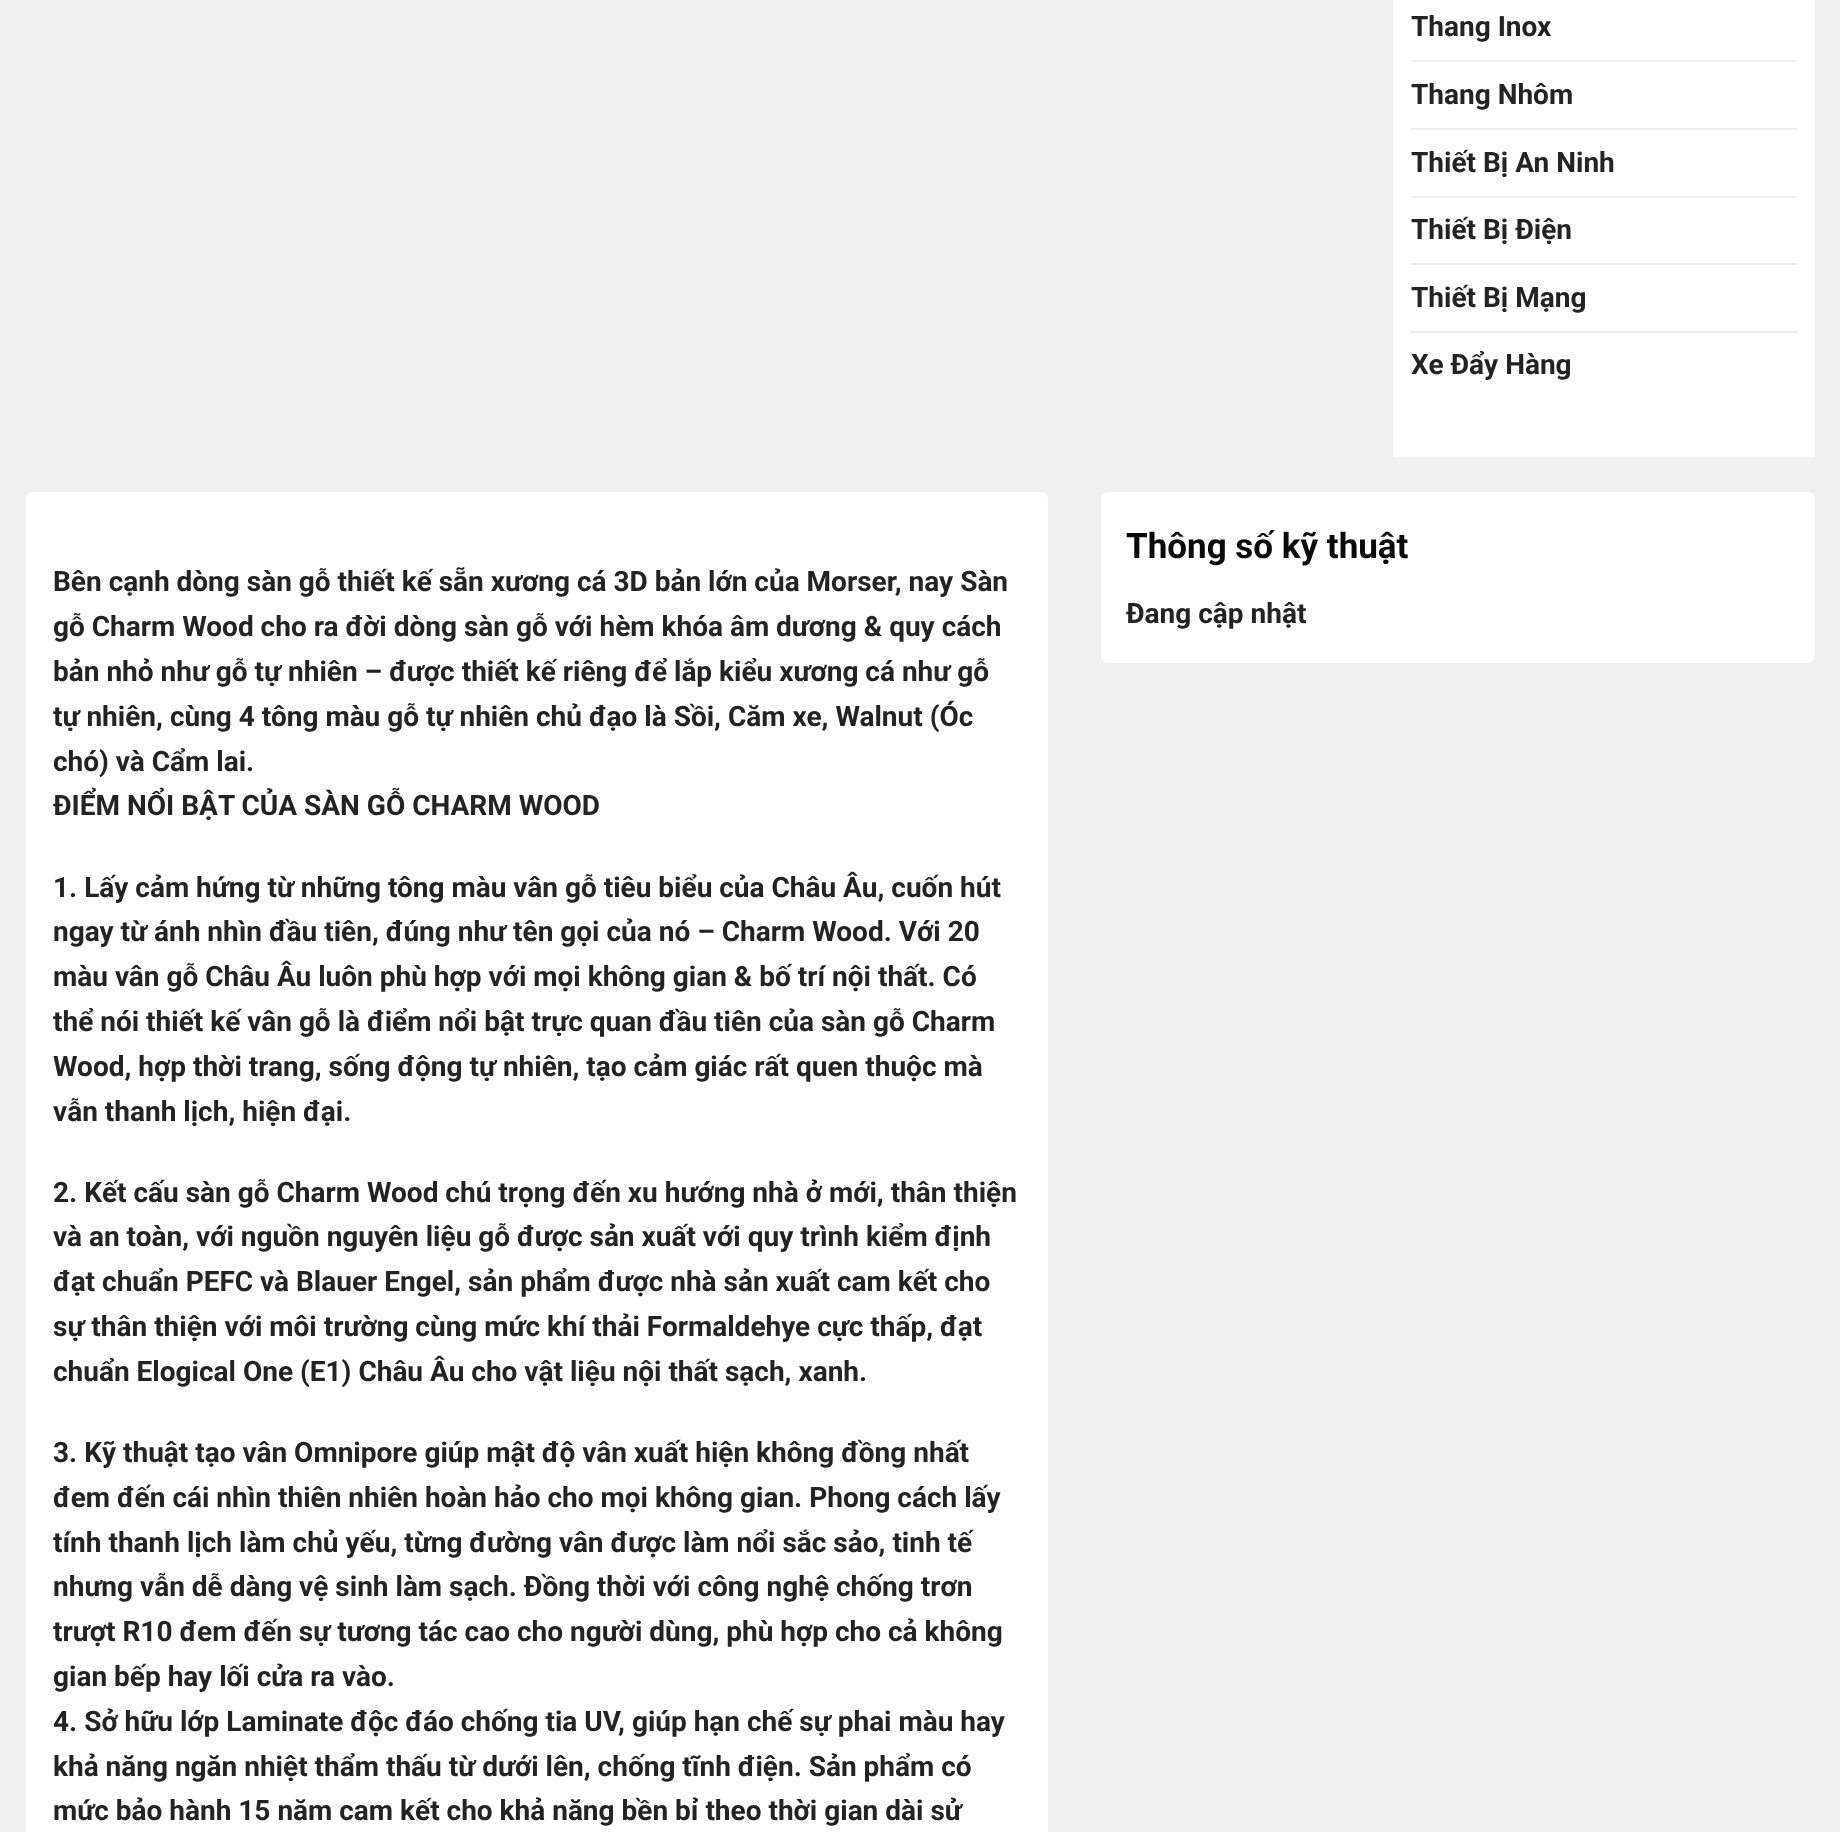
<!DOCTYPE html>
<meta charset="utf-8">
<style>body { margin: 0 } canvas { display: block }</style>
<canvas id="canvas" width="1840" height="1832"></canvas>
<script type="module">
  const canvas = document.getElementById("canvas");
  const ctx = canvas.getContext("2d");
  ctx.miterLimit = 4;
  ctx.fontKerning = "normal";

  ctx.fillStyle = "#f1f0f1";
  ctx.fillRect(0, 0, 1840, 1832);
  ctx.fillStyle = "#ffffff";
  ctx.fillRect(1393, 0, 422, 457);
  ctx.font = "bold 28px Roboto";
  ctx.fillStyle = "#232323";
  ctx.fillText("Thang Inox", 1411, 36);
  ctx.fillStyle = "#ececec";
  ctx.fillRect(1411, 60, 386, 2);
  ctx.fillStyle = "#232323";
  ctx.fillText("Thang Nhôm", 1411, 104);
  ctx.fillStyle = "#ececec";
  ctx.fillRect(1411, 128, 386, 2);
  ctx.fillStyle = "#232323";
  ctx.fillText("Thiết Bị An Ninh", 1411, 172);
  ctx.fillStyle = "#ececec";
  ctx.fillRect(1411, 196, 386, 2);
  ctx.fillStyle = "#232323";
  ctx.fillText("Thiết Bị Điện", 1411, 239);
  ctx.fillStyle = "#ececec";
  ctx.fillRect(1411, 263, 386, 2);
  ctx.fillStyle = "#232323";
  ctx.fillText("Thiết Bị Mạng", 1411, 307);
  ctx.fillStyle = "#ececec";
  ctx.fillRect(1411, 331, 386, 2);
  ctx.fillStyle = "#232323";
  ctx.fillText("Xe Đẩy Hàng", 1411, 374);
  ctx.fillStyle = "#ffffff";
  ctx.beginPath();
  ctx.roundRect(26, 492, 1022, 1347, 7);
  ctx.fill();
  ctx.fillStyle = "#232323";
  ctx.fillText("Bên cạnh dòng sàn gỗ thiết kế sẵn xương cá 3D bản lớn của Morser, nay Sàn", 53, 591);
  ctx.fillText("gỗ Charm Wood cho ra đời dòng sàn gỗ với hèm khóa âm dương & quy cách", 53, 636);
  ctx.fillText("bản nhỏ như gỗ tự nhiên – được thiết kế riêng để lắp kiểu xương cá như gỗ", 53, 681);
  ctx.save();
  ctx.beginPath();
  ctx.rect(53, 518, 969, 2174);
  ctx.clip();
  ctx.fillText("tự nhiên, cùng 4 tông màu gỗ tự nhiên chủ đạo là Sồi, Căm xe, Walnut (Óc", 53, 726);
  ctx.restore();
  ctx.fillText("chó) và Cẩm lai.", 53, 771);
  ctx.save();
  ctx.beginPath();
  ctx.rect(53, 518, 969, 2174);
  ctx.clip();
  ctx.fillText("ĐIỂM NỔI BẬT CỦA SÀN GỖ CHARM WOOD", 53, 815);
  ctx.restore();
  ctx.fillText("1. Lấy cảm hứng từ những tông màu vân gỗ tiêu biểu của Châu Âu, cuốn hút", 53, 897);
  ctx.fillText("ngay từ ánh nhìn đầu tiên, đúng như tên gọi của nó – Charm Wood. Với 20", 53, 941);
  ctx.fillText("màu vân gỗ Châu Âu luôn phù hợp với mọi không gian & bố trí nội thất. Có", 53, 986);
  ctx.save();
  ctx.beginPath();
  ctx.rect(53, 518, 969, 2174);
  ctx.clip();
  ctx.fillText("thể nói thiết kế vân gỗ là điểm nổi bật trực quan đầu tiên của sàn gỗ Charm", 53, 1031);
  ctx.restore();
  ctx.fillText("Wood, hợp thời trang, sống động tự nhiên, tạo cảm giác rất quen thuộc mà", 53, 1076);
  ctx.fillText("vẫn thanh lịch, hiện đại.", 53, 1121);
  ctx.fillText("2. Kết cấu sàn gỗ Charm Wood chú trọng đến xu hướng nhà ở mới, thân thiện", 53, 1202);
  ctx.fillText("và an toàn, với nguồn nguyên liệu gỗ được sản xuất với quy trình kiểm định", 53, 1246);
  ctx.fillText("đạt chuẩn PEFC và Blauer Engel, sản phẩm được nhà sản xuất cam kết cho", 53, 1291);
  ctx.fillText("sự thân thiện với môi trường cùng mức khí thải Formaldehye cực thấp, đạt", 53, 1336);
  ctx.fillText("chuẩn Elogical One (E1) Châu Âu cho vật liệu nội thất sạch, xanh.", 53, 1381);
  ctx.fillText("3. Kỹ thuật tạo vân Omnipore giúp mật độ vân xuất hiện không đồng nhất", 53, 1462);
  ctx.fillText("đem đến cái nhìn thiên nhiên hoàn hảo cho mọi không gian. Phong cách lấy", 53, 1507);
  ctx.save();
  ctx.beginPath();
  ctx.rect(53, 518, 969, 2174);
  ctx.clip();
  ctx.fillText("tính thanh lịch làm chủ yếu, từng đường vân được làm nổi sắc sảo, tinh tế", 53, 1552);
  ctx.restore();
  ctx.fillText("nhưng vẫn dễ dàng vệ sinh làm sạch. Đồng thời với công nghệ chống trơn", 53, 1596);
  ctx.save();
  ctx.beginPath();
  ctx.rect(53, 518, 969, 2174);
  ctx.clip();
  ctx.fillText("trượt R10 đem đến sự tương tác cao cho người dùng, phù hợp cho cả không", 53, 1641);
  ctx.restore();
  ctx.fillText("gian bếp hay lối cửa ra vào.", 53, 1686);
  ctx.fillText("4. Sở hữu lớp Laminate độc đáo chống tia UV, giúp hạn chế sự phai màu hay", 53, 1731);
  ctx.fillText("khả năng ngăn nhiệt thẩm thấu từ dưới lên, chống tĩnh điện. Sản phẩm có", 53, 1776);
  ctx.fillText("mức bảo hành 15 năm cam kết cho khả năng bền bỉ theo thời gian dài sử", 53, 1820);
  ctx.fillStyle = "#ffffff";
  ctx.beginPath();
  ctx.roundRect(1101, 492, 714, 171, 7);
  ctx.fill();
  ctx.font = "bold 35px Roboto";
  ctx.fillStyle = "#0a0a0a";
  ctx.fillText("Thông số kỹ thuật", 1126, 558);
  ctx.font = "bold 28px Roboto";
  ctx.fillStyle = "#232323";
  ctx.fillText("Đang cập nhật", 1126, 623);
</script>
